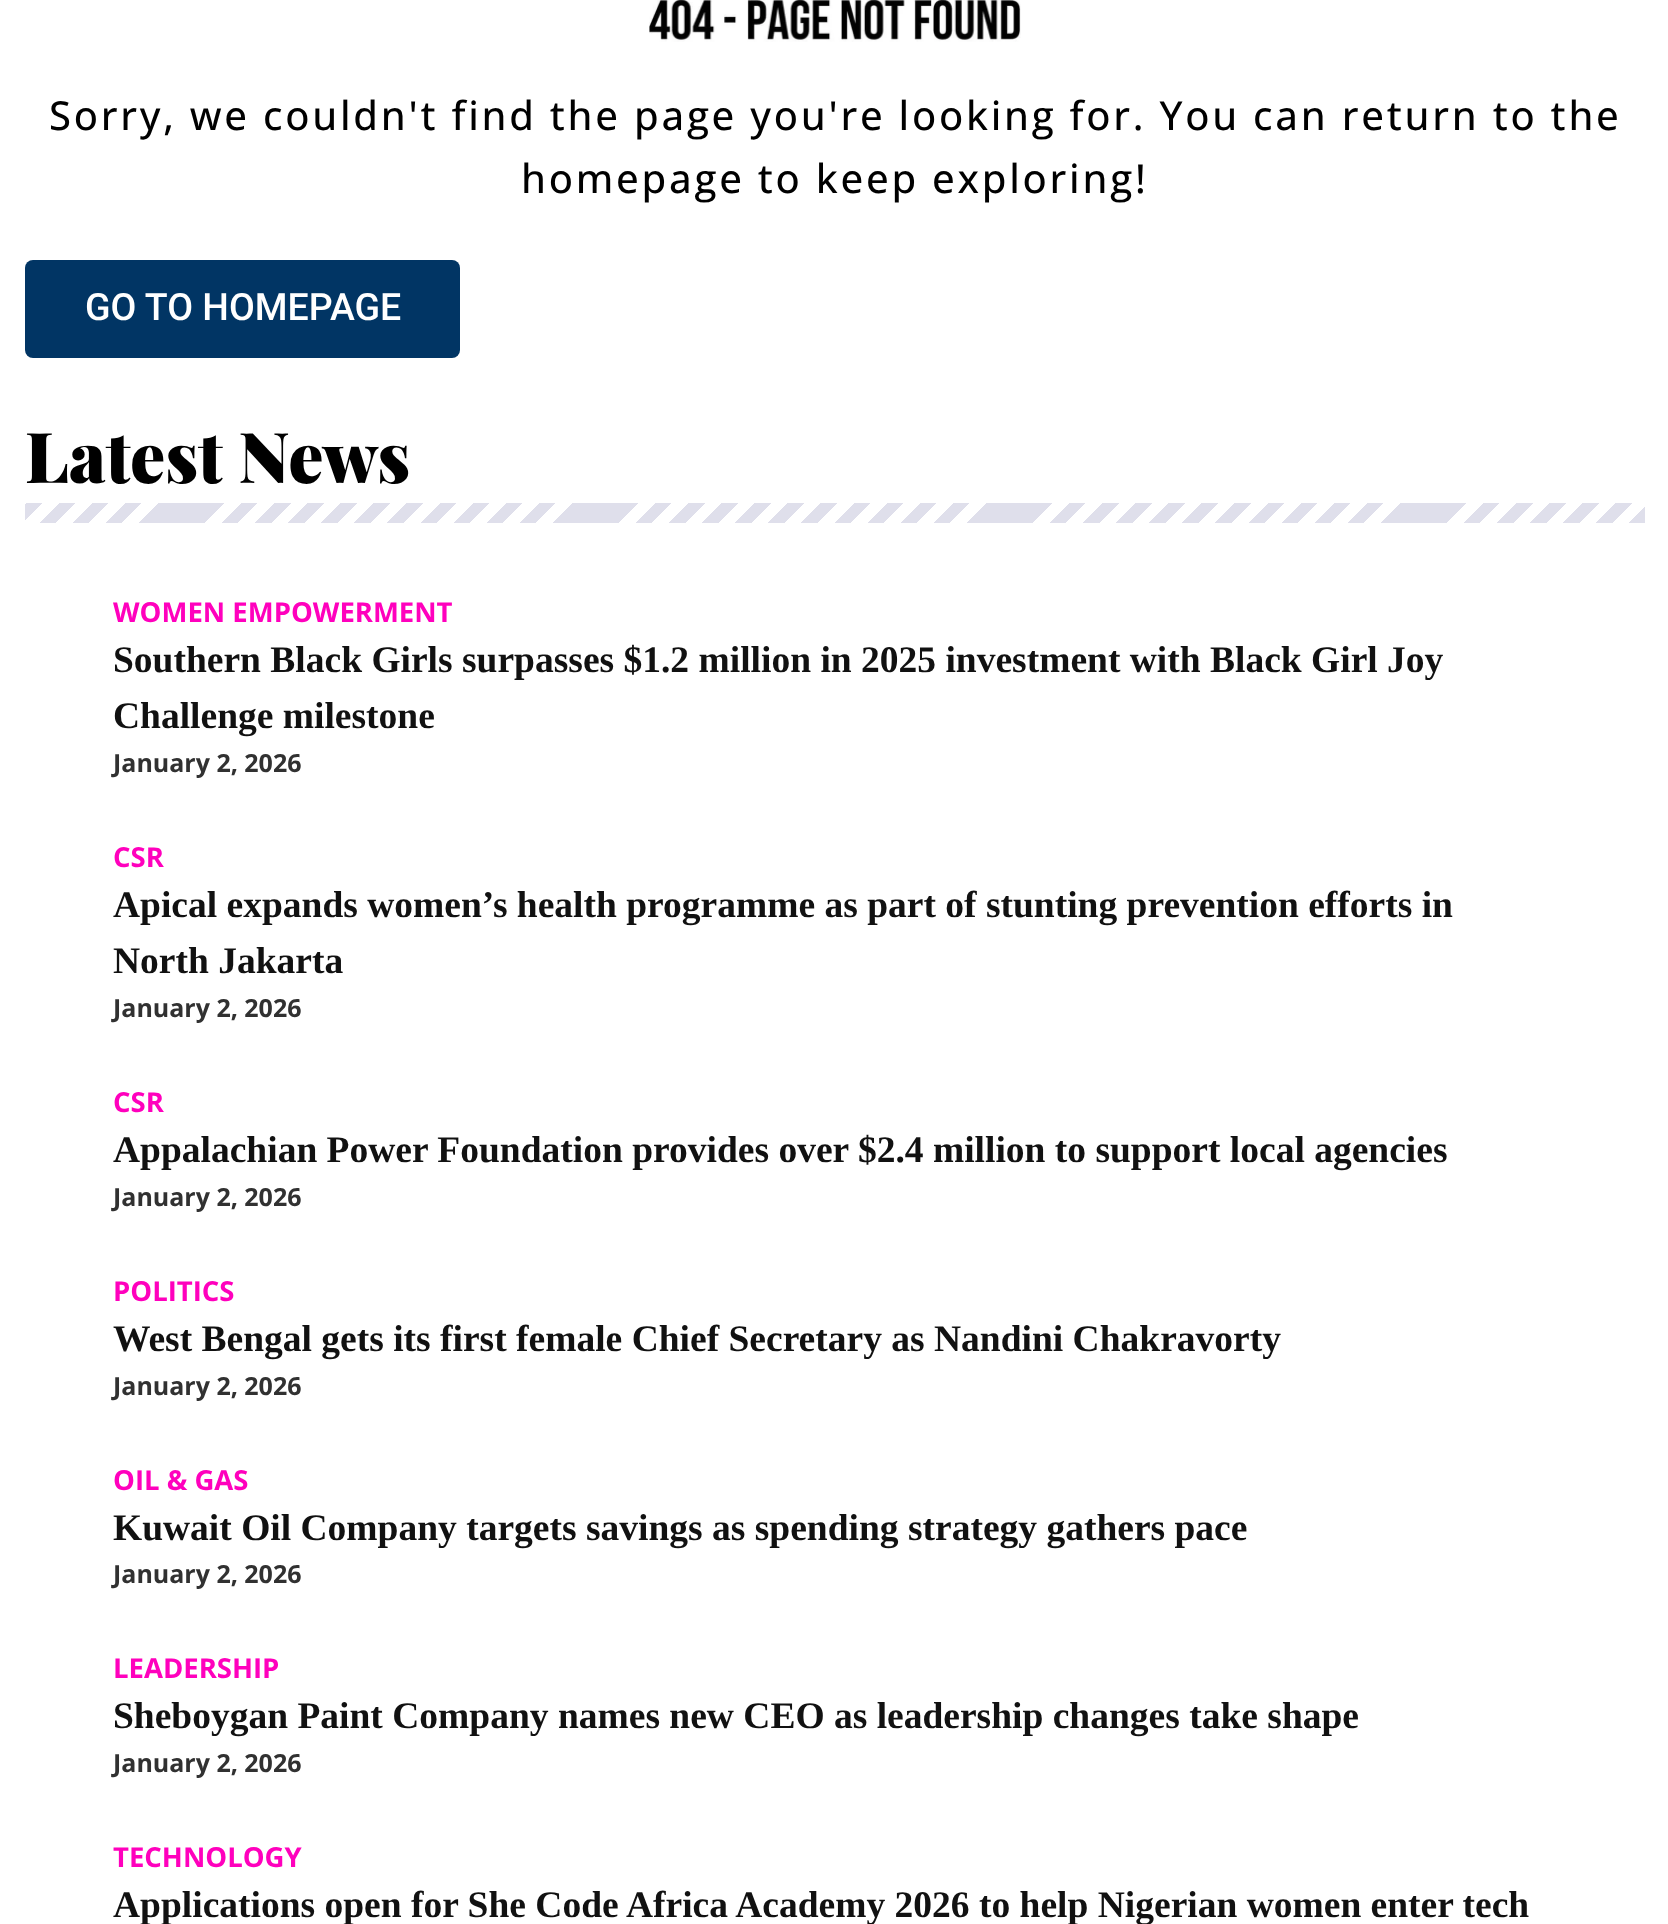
<!DOCTYPE html>
<meta charset="utf-8">
<style>body { margin: 0 } canvas { display: block }</style>
<canvas id="canvas" width="1668" height="1924"></canvas>
<script type="module">
  const canvas = document.getElementById("canvas");
  const ctx = canvas.getContext("2d");
  ctx.miterLimit = 4;
  ctx.fontKerning = "normal";
  async function loadImage(src) {
    const img = new Image();
    img.src = src;
    await img.decode();
    return img;
  }
  let gradient;

  ctx.fillStyle = "#ffffff";
  ctx.fillRect(0, 0, 1668, 1924);
  ctx.drawImage(await loadImage("img1.png"), 649, 0, 372, 42);
  ctx.letterSpacing = "2.75px";
  ctx.font = "500 40px Open Sans";
  ctx.fillStyle = "#000000";
  ctx.fillText("Sorry, we couldn't find the page you're looking for. You can return to the", 49, 130);
  ctx.fillText("homepage to keep exploring!", 521, 193);
  ctx.fillStyle = "#013564";
  ctx.beginPath();
  ctx.roundRect(25, 260, 435, 98, 8);
  ctx.fill();
  ctx.letterSpacing = "0px";
  ctx.font = "500 37.5px Roboto";
  ctx.fillStyle = "#ffffff";
  ctx.fillText("GO TO HOMEPAGE", 85, 320);
  ctx.font = "900 70px Playfair Display";
  ctx.fillStyle = "#000000";
  ctx.fillText("Latest News", 25, 483);
  gradient = ctx.createLinearGradient(1245, 923, 418, 95);
  gradient.addColorStop(0, "#dfdfeb");
  gradient.addColorStop(0.01, "#dfdfeb");
  gradient.addColorStop(0.01, "#ffffff");
  gradient.addColorStop(0.02, "#ffffff");
  gradient.addColorStop(0.02, "#dfdfeb");
  gradient.addColorStop(0.03, "#dfdfeb");
  gradient.addColorStop(0.03, "#ffffff");
  gradient.addColorStop(0.04, "#ffffff");
  gradient.addColorStop(0.04, "#dfdfeb");
  gradient.addColorStop(0.05, "#dfdfeb");
  gradient.addColorStop(0.05, "#ffffff");
  gradient.addColorStop(0.06, "#ffffff");
  gradient.addColorStop(0.06, "#dfdfeb");
  gradient.addColorStop(0.07, "#dfdfeb");
  gradient.addColorStop(0.07, "#ffffff");
  gradient.addColorStop(0.08, "#ffffff");
  gradient.addColorStop(0.08, "#dfdfeb");
  gradient.addColorStop(0.09, "#dfdfeb");
  gradient.addColorStop(0.09, "#ffffff");
  gradient.addColorStop(0.1, "#ffffff");
  gradient.addColorStop(0.1, "#dfdfeb");
  gradient.addColorStop(0.11, "#dfdfeb");
  gradient.addColorStop(0.11, "#ffffff");
  gradient.addColorStop(0.12, "#ffffff");
  gradient.addColorStop(0.12, "#dfdfeb");
  gradient.addColorStop(0.13, "#dfdfeb");
  gradient.addColorStop(0.13, "#ffffff");
  gradient.addColorStop(0.13, "#dfdfeb");
  gradient.addColorStop(0.15, "#dfdfeb");
  gradient.addColorStop(0.15, "#ffffff");
  gradient.addColorStop(0.15, "#dfdfeb");
  gradient.addColorStop(0.16, "#dfdfeb");
  gradient.addColorStop(0.16, "#ffffff");
  gradient.addColorStop(0.17, "#ffffff");
  gradient.addColorStop(0.17, "#dfdfeb");
  gradient.addColorStop(0.18, "#dfdfeb");
  gradient.addColorStop(0.18, "#ffffff");
  gradient.addColorStop(0.19, "#ffffff");
  gradient.addColorStop(0.19, "#dfdfeb");
  gradient.addColorStop(0.2, "#dfdfeb");
  gradient.addColorStop(0.2, "#ffffff");
  gradient.addColorStop(0.21, "#ffffff");
  gradient.addColorStop(0.21, "#dfdfeb");
  gradient.addColorStop(0.22, "#dfdfeb");
  gradient.addColorStop(0.22, "#ffffff");
  gradient.addColorStop(0.23, "#ffffff");
  gradient.addColorStop(0.23, "#dfdfeb");
  gradient.addColorStop(0.24, "#dfdfeb");
  gradient.addColorStop(0.24, "#ffffff");
  gradient.addColorStop(0.25, "#ffffff");
  gradient.addColorStop(0.25, "#dfdfeb");
  gradient.addColorStop(0.26, "#dfdfeb");
  gradient.addColorStop(0.26, "#ffffff");
  gradient.addColorStop(0.27, "#ffffff");
  gradient.addColorStop(0.27, "#dfdfeb");
  gradient.addColorStop(0.28, "#dfdfeb");
  gradient.addColorStop(0.28, "#ffffff");
  gradient.addColorStop(0.29, "#ffffff");
  gradient.addColorStop(0.29, "#dfdfeb");
  gradient.addColorStop(0.3, "#dfdfeb");
  gradient.addColorStop(0.3, "#ffffff");
  gradient.addColorStop(0.31, "#ffffff");
  gradient.addColorStop(0.31, "#dfdfeb");
  gradient.addColorStop(0.32, "#dfdfeb");
  gradient.addColorStop(0.32, "#ffffff");
  gradient.addColorStop(0.33, "#ffffff");
  gradient.addColorStop(0.33, "#dfdfeb");
  gradient.addColorStop(0.34, "#dfdfeb");
  gradient.addColorStop(0.34, "#ffffff");
  gradient.addColorStop(0.35, "#ffffff");
  gradient.addColorStop(0.35, "#dfdfeb");
  gradient.addColorStop(0.36, "#dfdfeb");
  gradient.addColorStop(0.36, "#ffffff");
  gradient.addColorStop(0.37, "#ffffff");
  gradient.addColorStop(0.37, "#dfdfeb");
  gradient.addColorStop(0.38, "#dfdfeb");
  gradient.addColorStop(0.38, "#ffffff");
  gradient.addColorStop(0.38, "#dfdfeb");
  gradient.addColorStop(0.4, "#dfdfeb");
  gradient.addColorStop(0.4, "#ffffff");
  gradient.addColorStop(0.4, "#dfdfeb");
  gradient.addColorStop(0.41, "#dfdfeb");
  gradient.addColorStop(0.41, "#ffffff");
  gradient.addColorStop(0.42, "#ffffff");
  gradient.addColorStop(0.42, "#dfdfeb");
  gradient.addColorStop(0.43, "#dfdfeb");
  gradient.addColorStop(0.43, "#ffffff");
  gradient.addColorStop(0.44, "#ffffff");
  gradient.addColorStop(0.44, "#dfdfeb");
  gradient.addColorStop(0.45, "#dfdfeb");
  gradient.addColorStop(0.45, "#ffffff");
  gradient.addColorStop(0.46, "#ffffff");
  gradient.addColorStop(0.46, "#dfdfeb");
  gradient.addColorStop(0.47, "#dfdfeb");
  gradient.addColorStop(0.47, "#ffffff");
  gradient.addColorStop(0.48, "#ffffff");
  gradient.addColorStop(0.48, "#dfdfeb");
  gradient.addColorStop(0.49, "#dfdfeb");
  gradient.addColorStop(0.49, "#ffffff");
  gradient.addColorStop(0.5, "#ffffff");
  gradient.addColorStop(0.5, "#dfdfeb");
  gradient.addColorStop(0.51, "#dfdfeb");
  gradient.addColorStop(0.51, "#ffffff");
  gradient.addColorStop(0.52, "#ffffff");
  gradient.addColorStop(0.52, "#dfdfeb");
  gradient.addColorStop(0.53, "#dfdfeb");
  gradient.addColorStop(0.53, "#ffffff");
  gradient.addColorStop(0.54, "#ffffff");
  gradient.addColorStop(0.54, "#dfdfeb");
  gradient.addColorStop(0.55, "#dfdfeb");
  gradient.addColorStop(0.55, "#ffffff");
  gradient.addColorStop(0.56, "#ffffff");
  gradient.addColorStop(0.56, "#dfdfeb");
  gradient.addColorStop(0.57, "#dfdfeb");
  gradient.addColorStop(0.57, "#ffffff");
  gradient.addColorStop(0.58, "#ffffff");
  gradient.addColorStop(0.58, "#dfdfeb");
  gradient.addColorStop(0.59, "#dfdfeb");
  gradient.addColorStop(0.59, "#ffffff");
  gradient.addColorStop(0.6, "#ffffff");
  gradient.addColorStop(0.6, "#dfdfeb");
  gradient.addColorStop(0.61, "#dfdfeb");
  gradient.addColorStop(0.61, "#ffffff");
  gradient.addColorStop(0.62, "#ffffff");
  gradient.addColorStop(0.62, "#dfdfeb");
  gradient.addColorStop(0.63, "#dfdfeb");
  gradient.addColorStop(0.63, "#ffffff");
  gradient.addColorStop(0.63, "#dfdfeb");
  gradient.addColorStop(0.65, "#dfdfeb");
  gradient.addColorStop(0.65, "#ffffff");
  gradient.addColorStop(0.65, "#dfdfeb");
  gradient.addColorStop(0.66, "#dfdfeb");
  gradient.addColorStop(0.66, "#ffffff");
  gradient.addColorStop(0.67, "#ffffff");
  gradient.addColorStop(0.67, "#dfdfeb");
  gradient.addColorStop(0.68, "#dfdfeb");
  gradient.addColorStop(0.68, "#ffffff");
  gradient.addColorStop(0.69, "#ffffff");
  gradient.addColorStop(0.69, "#dfdfeb");
  gradient.addColorStop(0.7, "#dfdfeb");
  gradient.addColorStop(0.7, "#ffffff");
  gradient.addColorStop(0.71, "#ffffff");
  gradient.addColorStop(0.71, "#dfdfeb");
  gradient.addColorStop(0.72, "#dfdfeb");
  gradient.addColorStop(0.72, "#ffffff");
  gradient.addColorStop(0.73, "#ffffff");
  gradient.addColorStop(0.73, "#dfdfeb");
  gradient.addColorStop(0.74, "#dfdfeb");
  gradient.addColorStop(0.74, "#ffffff");
  gradient.addColorStop(0.75, "#ffffff");
  gradient.addColorStop(0.75, "#dfdfeb");
  gradient.addColorStop(0.76, "#dfdfeb");
  gradient.addColorStop(0.76, "#ffffff");
  gradient.addColorStop(0.77, "#ffffff");
  gradient.addColorStop(0.77, "#dfdfeb");
  gradient.addColorStop(0.78, "#dfdfeb");
  gradient.addColorStop(0.78, "#ffffff");
  gradient.addColorStop(0.79, "#ffffff");
  gradient.addColorStop(0.79, "#dfdfeb");
  gradient.addColorStop(0.8, "#dfdfeb");
  gradient.addColorStop(0.8, "#ffffff");
  gradient.addColorStop(0.81, "#ffffff");
  gradient.addColorStop(0.81, "#dfdfeb");
  gradient.addColorStop(0.82, "#dfdfeb");
  gradient.addColorStop(0.82, "#ffffff");
  gradient.addColorStop(0.83, "#ffffff");
  gradient.addColorStop(0.83, "#dfdfeb");
  gradient.addColorStop(0.84, "#dfdfeb");
  gradient.addColorStop(0.84, "#ffffff");
  gradient.addColorStop(0.85, "#ffffff");
  gradient.addColorStop(0.85, "#dfdfeb");
  gradient.addColorStop(0.86, "#dfdfeb");
  gradient.addColorStop(0.86, "#ffffff");
  gradient.addColorStop(0.87, "#ffffff");
  gradient.addColorStop(0.87, "#dfdfeb");
  gradient.addColorStop(0.88, "#dfdfeb");
  gradient.addColorStop(0.88, "#ffffff");
  gradient.addColorStop(0.88, "#dfdfeb");
  gradient.addColorStop(0.9, "#dfdfeb");
  gradient.addColorStop(0.9, "#ffffff");
  gradient.addColorStop(0.9, "#dfdfeb");
  gradient.addColorStop(0.91, "#dfdfeb");
  gradient.addColorStop(0.91, "#ffffff");
  gradient.addColorStop(0.92, "#ffffff");
  gradient.addColorStop(0.92, "#dfdfeb");
  gradient.addColorStop(0.93, "#dfdfeb");
  gradient.addColorStop(0.93, "#ffffff");
  gradient.addColorStop(0.94, "#ffffff");
  gradient.addColorStop(0.94, "#dfdfeb");
  gradient.addColorStop(0.95, "#dfdfeb");
  gradient.addColorStop(0.95, "#ffffff");
  gradient.addColorStop(0.96, "#ffffff");
  gradient.addColorStop(0.96, "#dfdfeb");
  gradient.addColorStop(0.97, "#dfdfeb");
  gradient.addColorStop(0.97, "#ffffff");
  gradient.addColorStop(0.98, "#ffffff");
  gradient.addColorStop(0.98, "#dfdfeb");
  gradient.addColorStop(0.99, "#dfdfeb");
  gradient.addColorStop(0.99, "#ffffff");
  gradient.addColorStop(1, "#ffffff");
  ctx.fillStyle = gradient;
  ctx.fillRect(25, 503, 1620, 20);
  ctx.font = "bold 27.5px Open Sans";
  ctx.fillStyle = "#ff00bd";
  ctx.fillText("WOMEN EMPOWERMENT", 113, 622);
  ctx.font = "bold 37.5px Liberation Serif";
  ctx.fillStyle = "#111111";
  ctx.fillText("Southern Black Girls surpasses $1.2 million in 2025 investment with Black Girl Joy", 113, 672);
  ctx.fillText("Challenge milestone", 113, 728);
  ctx.font = "bold 25px Open Sans";
  ctx.fillStyle = "#313131";
  ctx.fillText("January 2, 2026", 113, 772);
  ctx.font = "bold 27.5px Open Sans";
  ctx.fillStyle = "#ff00bd";
  ctx.fillText("CSR", 113, 867);
  ctx.font = "bold 37.5px Liberation Serif";
  ctx.fillStyle = "#111111";
  ctx.fillText("Apical expands women’s health programme as part of stunting prevention efforts in", 113, 917);
  ctx.fillText("North Jakarta", 113, 973);
  ctx.font = "bold 25px Open Sans";
  ctx.fillStyle = "#313131";
  ctx.fillText("January 2, 2026", 113, 1017);
  ctx.font = "bold 27.5px Open Sans";
  ctx.fillStyle = "#ff00bd";
  ctx.fillText("CSR", 113, 1112);
  ctx.font = "bold 37.5px Liberation Serif";
  ctx.fillStyle = "#111111";
  ctx.fillText("Appalachian Power Foundation provides over $2.4 million to support local agencies", 113, 1162);
  ctx.font = "bold 25px Open Sans";
  ctx.fillStyle = "#313131";
  ctx.fillText("January 2, 2026", 113, 1206);
  ctx.font = "bold 27.5px Open Sans";
  ctx.fillStyle = "#ff00bd";
  ctx.fillText("POLITICS", 113, 1301);
  ctx.font = "bold 37.5px Liberation Serif";
  ctx.fillStyle = "#111111";
  ctx.fillText("West Bengal gets its first female Chief Secretary as Nandini Chakravorty", 113, 1351);
  ctx.font = "bold 25px Open Sans";
  ctx.fillStyle = "#313131";
  ctx.fillText("January 2, 2026", 113, 1395);
  ctx.font = "bold 27.5px Open Sans";
  ctx.fillStyle = "#ff00bd";
  ctx.fillText("OIL & GAS", 113, 1490);
  ctx.font = "bold 37.5px Liberation Serif";
  ctx.fillStyle = "#111111";
  ctx.fillText("Kuwait Oil Company targets savings as spending strategy gathers pace", 113, 1540);
  ctx.font = "bold 25px Open Sans";
  ctx.fillStyle = "#313131";
  ctx.fillText("January 2, 2026", 113, 1583);
  ctx.font = "bold 27.5px Open Sans";
  ctx.fillStyle = "#ff00bd";
  ctx.fillText("LEADERSHIP", 113, 1678);
  ctx.font = "bold 37.5px Liberation Serif";
  ctx.fillStyle = "#111111";
  ctx.fillText("Sheboygan Paint Company names new CEO as leadership changes take shape", 113, 1728);
  ctx.font = "bold 25px Open Sans";
  ctx.fillStyle = "#313131";
  ctx.fillText("January 2, 2026", 113, 1772);
  ctx.font = "bold 27.5px Open Sans";
  ctx.fillStyle = "#ff00bd";
  ctx.fillText("TECHNOLOGY", 113, 1867);
  ctx.font = "bold 37.5px Liberation Serif";
  ctx.fillStyle = "#111111";
  ctx.fillText("Applications open for She Code Africa Academy 2026 to help Nigerian women enter tech", 113, 1917);
</script>
